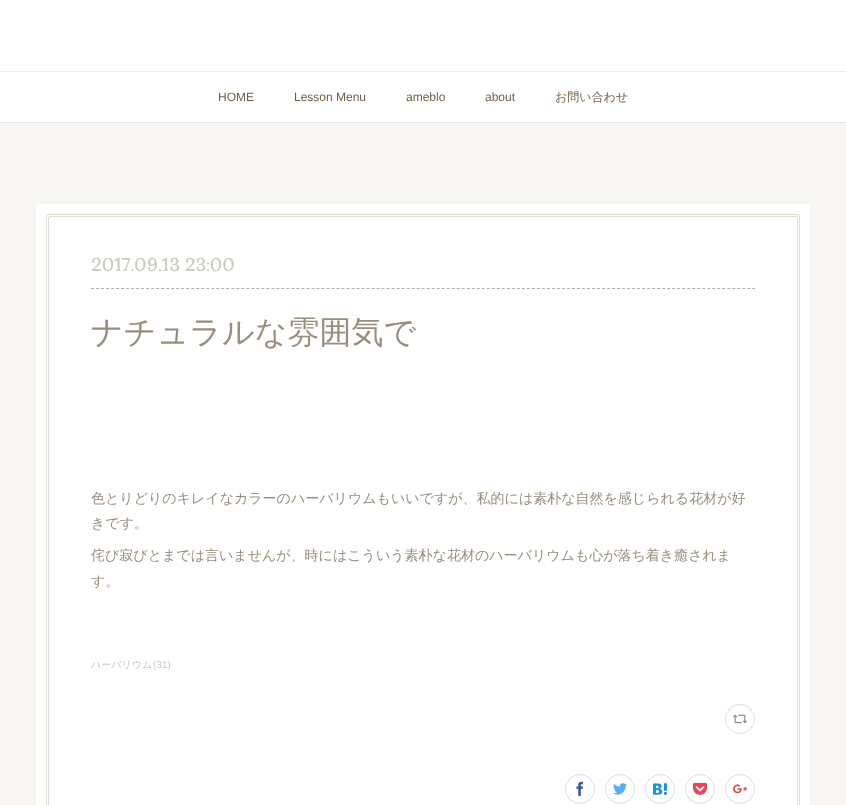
<!DOCTYPE html>
<meta charset="utf-8">
<style>body { margin: 0 } canvas { display: block }</style>
<canvas id="canvas" width="846" height="805"></canvas>
<script type="module">
  const canvas = document.getElementById("canvas");
  const ctx = canvas.getContext("2d");
  ctx.miterLimit = 4;
  ctx.fontKerning = "normal";
  async function loadImage(src) {
    const img = new Image();
    img.src = src;
    await img.decode();
    return img;
  }

  ctx.fillStyle = "#f7f6f2";
  ctx.fillRect(0, 0, 846, 805);
  ctx.fillStyle = "#ffffff";
  ctx.fillRect(0, 0, 846, 71);
  ctx.fillStyle = "#eeeeee";
  ctx.fillRect(0, 71, 846, 1);
  ctx.fillStyle = "#ffffff";
  ctx.fillRect(0, 72, 846, 50);
  ctx.fillStyle = "#e6e6e6";
  ctx.fillRect(0, 122, 846, 1);
  ctx.font = "12px Liberation Sans";
  ctx.fillStyle = "#6e5f44";
  ctx.fillText("HOME", 218, 101);
  ctx.fillText("Lesson Menu", 294, 101);
  ctx.fillText("ameblo", 406, 101);
  ctx.fillText("about", 485, 101);
  ctx.font = "500 12px WenQuanYi Zen Hei";
  ctx.fillText("お問い合わせ", 555, 101);
  ctx.fillStyle = "#ffffff";
  ctx.fillRect(36, 204, 774, 601);
  ctx.beginPath();
  ctx.roundRect(46.5, 214.5, 753, 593, 1.5);
  ctx.strokeStyle = "#e0ddd5";
  ctx.stroke();
  ctx.beginPath();
  ctx.roundRect(48.5, 216.5, 749, 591, 1.5);
  ctx.stroke();
  ctx.font = "18px Gabriela";
  ctx.fillStyle = "#ccc7be";
  ctx.fillText("2017.09.13 23:00", 91, 271);
  ctx.beginPath();
  ctx.moveTo(91, 288.5);
  ctx.lineTo(755, 288.5);
  ctx.strokeStyle = "#b6aea2";
  ctx.setLineDash([3, 2.01]);
  ctx.stroke();
  ctx.font = "500 32px WenQuanYi Zen Hei";
  ctx.fillStyle = "#998e7c";
  ctx.fillText("ナチュラルな雰囲気で", 91, 343);
  ctx.font = "500 14px WenQuanYi Zen Hei";
  ctx.fillText("色とりどりのキレイなカラーのハーバリウムもいいですが、私的には素朴な自然を感じられる花材が好", 91, 503);
  ctx.fillText("きです。", 91, 528);
  ctx.fillText("侘び寂びとまでは言いませんが、時にはこういう素朴な花材のハーバリウムも心が落ち着き癒されま", 91, 560);
  ctx.fillText("す。", 91, 586);
  ctx.font = "500 10px WenQuanYi Zen Hei";
  ctx.fillStyle = "#ccc7be";
  ctx.fillText("ハーバリウム", 91, 668);
  ctx.font = "10px Liberation Sans";
  ctx.fillText("(31)", 153, 668);
  ctx.beginPath();
  ctx.arc(740, 719, 14.5, 0, Math.PI * 2);
  ctx.strokeStyle = "#dddddd";
  ctx.setLineDash([]);
  ctx.stroke();
  ctx.drawImage(await loadImage("img1.png"), 733, 714, 14, 10);
  ctx.beginPath();
  ctx.arc(580, 789, 14.5, 0, Math.PI * 2);
  ctx.stroke();
  ctx.drawImage(await loadImage("img2.png"), 576, 781, 7, 15);
  ctx.beginPath();
  ctx.arc(620, 789, 14.5, 0, Math.PI * 2);
  ctx.stroke();
  ctx.drawImage(await loadImage("img3.png"), 613, 783, 14, 12);
  ctx.beginPath();
  ctx.arc(660, 789, 14.5, 0, Math.PI * 2);
  ctx.stroke();
  ctx.drawImage(await loadImage("img4.png"), 653, 783, 14, 12);
  ctx.beginPath();
  ctx.arc(700, 789, 14.5, 0, Math.PI * 2);
  ctx.stroke();
  ctx.drawImage(await loadImage("img5.png"), 693, 782, 14, 13);
  ctx.beginPath();
  ctx.arc(740, 789, 14.5, 0, Math.PI * 2);
  ctx.stroke();
  ctx.drawImage(await loadImage("img6.png"), 733, 784, 14, 10);
</script>
